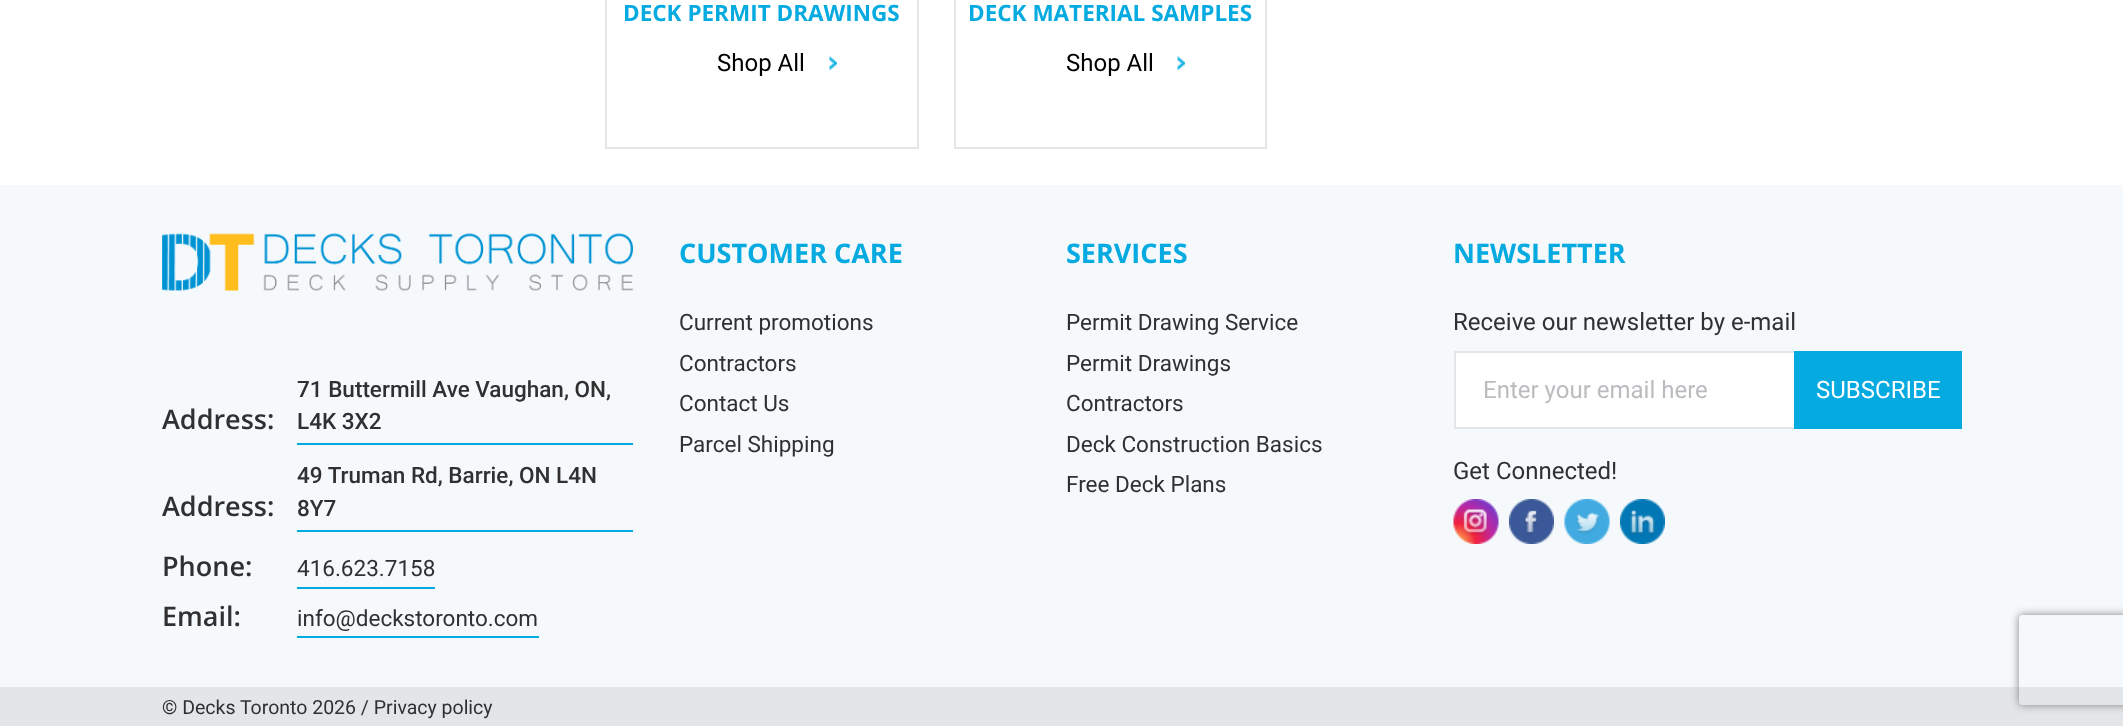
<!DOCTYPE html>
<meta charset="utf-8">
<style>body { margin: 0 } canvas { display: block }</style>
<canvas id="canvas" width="2123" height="726"></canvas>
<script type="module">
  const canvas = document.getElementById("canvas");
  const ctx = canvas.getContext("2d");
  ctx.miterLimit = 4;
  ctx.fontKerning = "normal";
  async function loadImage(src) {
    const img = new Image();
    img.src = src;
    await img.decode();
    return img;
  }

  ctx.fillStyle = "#ffffff";
  ctx.fillRect(0, 0, 2123, 726);
  ctx.fillStyle = "#e3e6e9";
  ctx.fillRect(917, 0, 2, 149);
  ctx.fillRect(605, 147, 313, 2);
  ctx.fillRect(605, 0, 2, 149);
  ctx.font = "bold 22.5px Open Sans";
  ctx.fillStyle = "#04aae0";
  ctx.fillText("DECK PERMIT DRAWINGS", 623, 21);
  ctx.font = "24px Roboto";
  ctx.fillStyle = "#000000";
  ctx.fillText("Shop All", 717, 71);
  ctx.drawImage(await loadImage("img1.png"), 829, 56, 8, 14);
  ctx.fillStyle = "#e3e6e9";
  ctx.fillRect(1265, 0, 2, 149);
  ctx.fillRect(954, 147, 312, 2);
  ctx.fillRect(954, 0, 2, 149);
  ctx.font = "bold 22.5px Open Sans";
  ctx.fillStyle = "#04aae0";
  ctx.fillText("DECK MATERIAL SAMPLES", 968, 21);
  ctx.font = "24px Roboto";
  ctx.fillStyle = "#000000";
  ctx.fillText("Shop All", 1066, 71);
  ctx.drawImage(await loadImage("img2.png"), 1177, 56, 8, 14);
  ctx.fillStyle = "#f5f9fc";
  ctx.fillRect(0, 185, 2123, 502);
  ctx.drawImage(await loadImage("img3.png"), 162, 233, 471, 58);
  ctx.font = "600 27px Open Sans";
  ctx.fillStyle = "#303030";
  ctx.fillText("Address:", 162, 429);
  ctx.fillStyle = "#04aae0";
  ctx.fillRect(297, 443, 336, 2);
  ctx.font = "500 22.5px Roboto";
  ctx.fillStyle = "#303030";
  ctx.fillText("71 Buttermill Ave Vaughan, ON,", 297, 397);
  ctx.fillText("L4K 3X2", 297, 429);
  ctx.font = "600 27px Open Sans";
  ctx.fillText("Address:", 162, 516);
  ctx.fillStyle = "#04aae0";
  ctx.fillRect(297, 530, 336, 2);
  ctx.font = "500 22.5px Roboto";
  ctx.fillStyle = "#303030";
  ctx.fillText("49 Truman Rd, Barrie, ON L4N", 297, 483);
  ctx.fillText("8Y7", 297, 516);
  ctx.font = "600 27px Open Sans";
  ctx.fillText("Phone:", 162, 576);
  ctx.fillStyle = "#04aae0";
  ctx.fillRect(297, 587, 138, 2);
  ctx.font = "22.5px Roboto";
  ctx.fillStyle = "#303030";
  ctx.fillText("416.623.7158", 297, 576);
  ctx.font = "600 27px Open Sans";
  ctx.fillText("Email:", 162, 626);
  ctx.fillStyle = "#04aae0";
  ctx.fillRect(297, 636, 242, 2);
  ctx.font = "22.5px Roboto";
  ctx.fillStyle = "#303030";
  ctx.fillText("info@deckstoronto.com", 297, 626);
  ctx.font = "bold 27px Open Sans";
  ctx.fillStyle = "#04aae0";
  ctx.fillText("CUSTOMER CARE", 679, 263);
  ctx.font = "22.5px Roboto";
  ctx.fillStyle = "#303030";
  ctx.fillText("Current promotions", 679, 330);
  ctx.fillText("Contractors", 679, 371);
  ctx.fillText("Contact Us", 679, 411);
  ctx.fillText("Parcel Shipping", 679, 452);
  ctx.font = "bold 27px Open Sans";
  ctx.fillStyle = "#04aae0";
  ctx.fillText("SERVICES", 1066, 263);
  ctx.font = "22.5px Roboto";
  ctx.fillStyle = "#303030";
  ctx.fillText("Permit Drawing Service", 1066, 330);
  ctx.fillText("Permit Drawings", 1066, 371);
  ctx.fillText("Contractors", 1066, 411);
  ctx.fillText("Deck Construction Basics", 1066, 452);
  ctx.fillText("Free Deck Plans", 1066, 492);
  ctx.font = "bold 27px Open Sans";
  ctx.fillStyle = "#04aae0";
  ctx.fillText("NEWSLETTER", 1453, 263);
  ctx.font = "24px Roboto";
  ctx.fillStyle = "#303030";
  ctx.fillText("Receive our newsletter by e-mail", 1453, 330);
  ctx.fillStyle = "#ffffff";
  ctx.fillRect(1456, 353, 338, 74);
  ctx.strokeStyle = "#e3e6e9";
  ctx.lineWidth = 2;
  ctx.strokeRect(1455, 352, 506, 76);
  ctx.fillStyle = "#babcbf";
  ctx.fillText("Enter your email here", 1483, 398);
  ctx.fillStyle = "#04aae0";
  ctx.fillRect(1794, 351, 168, 78);
  ctx.fillStyle = "#ffffff";
  ctx.fillText("SUBSCRIBE", 1816, 398);
  ctx.fillStyle = "#303030";
  ctx.fillText("Get Connected!", 1453, 479);
  ctx.drawImage(await loadImage("img4.png"), 1453, 499, 46, 45);
  ctx.drawImage(await loadImage("img5.png"), 1509, 499, 45, 45);
  ctx.drawImage(await loadImage("img6.png"), 1564, 499, 46, 45);
  ctx.drawImage(await loadImage("img7.png"), 1620, 499, 45, 45);
  ctx.fillStyle = "#e3e6e9";
  ctx.fillRect(0, 687, 2123, 39);
  ctx.font = "19.5px Roboto";
  ctx.fillStyle = "#303030";
  ctx.fillText("© Decks Toronto 2026 / Privacy policy", 162, 714);
  ctx.save();
  ctx.beginPath();
  ctx.moveTo(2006, 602);
  ctx.lineTo(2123, 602);
  ctx.lineTo(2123, 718);
  ctx.lineTo(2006, 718);
  ctx.closePath();
  ctx.moveTo(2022, 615);
  ctx.lineTo(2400, 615);
  ctx.bezierCurveTo(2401.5, 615, 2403, 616.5, 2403, 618);
  ctx.lineTo(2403, 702);
  ctx.bezierCurveTo(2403, 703.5, 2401.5, 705, 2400, 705);
  ctx.lineTo(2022, 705);
  ctx.bezierCurveTo(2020.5, 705, 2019, 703.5, 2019, 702);
  ctx.lineTo(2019, 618);
  ctx.bezierCurveTo(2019, 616.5, 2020.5, 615, 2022, 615);
  ctx.closePath();
  ctx.clip("evenodd");
  ctx.fillStyle = "#808080";
  ctx.filter = "blur(4px)";
  ctx.beginPath();
  ctx.roundRect(2019, 615, 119, 90, 3);
  ctx.fill();
  ctx.filter = "none";
  ctx.restore();
</script>
